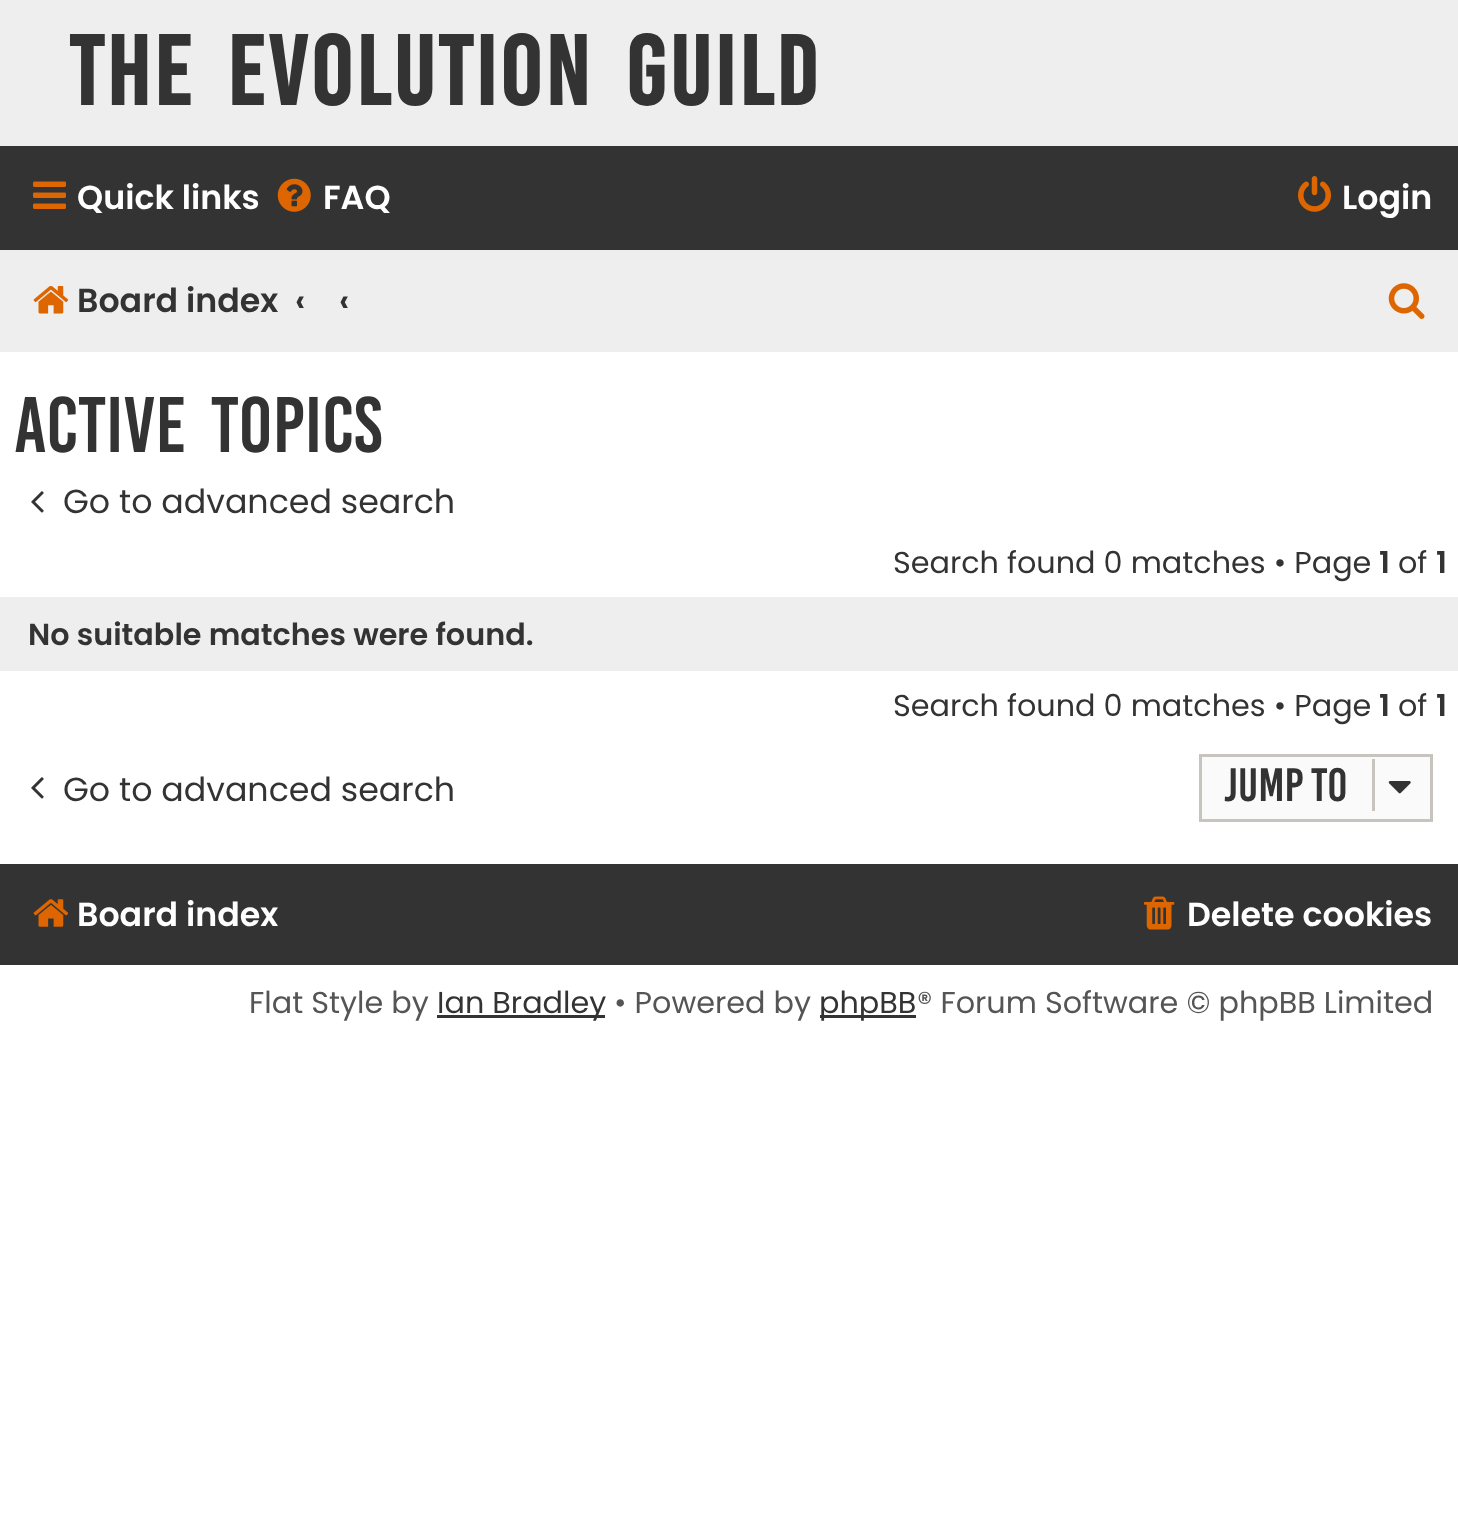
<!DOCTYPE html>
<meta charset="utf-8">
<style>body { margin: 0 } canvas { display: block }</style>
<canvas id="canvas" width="1458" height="1540"></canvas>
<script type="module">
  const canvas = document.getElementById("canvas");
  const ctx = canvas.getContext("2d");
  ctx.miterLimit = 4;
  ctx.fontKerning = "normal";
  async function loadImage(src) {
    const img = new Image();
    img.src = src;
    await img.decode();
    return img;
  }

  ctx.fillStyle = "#ffffff";
  ctx.fillRect(0, 0, 1458, 1540);
  ctx.fillStyle = "#eeeeee";
  ctx.fillRect(0, 0, 1458, 146);
  ctx.letterSpacing = "2.75px";
  ctx.wordSpacing = "11px";
  ctx.font = "bold 75.6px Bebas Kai";
  ctx.fillStyle = "#333333";
  ctx.fillText("The Evolution Guild", 69, 105);
  ctx.fillRect(0, 146, 1458, 104);
  ctx.drawImage(await loadImage("img1.png"), 33, 181, 33, 28);
  ctx.letterSpacing = "0px";
  ctx.wordSpacing = "0px";
  ctx.font = "600 33.25px Poppins";
  ctx.fillStyle = "#ffffff";
  ctx.fillText("Quick links", 77, 209);
  ctx.drawImage(await loadImage("img2.png"), 277, 178, 34, 34);
  ctx.fillText("FAQ", 323, 209);
  ctx.drawImage(await loadImage("img3.png"), 1298, 176, 33, 36);
  ctx.fillText("Login", 1342, 209);
  ctx.fillStyle = "#eeeeee";
  ctx.fillRect(0, 250, 1458, 102);
  ctx.drawImage(await loadImage("img4.png"), 33, 286, 36, 28);
  ctx.fillStyle = "#333333";
  ctx.fillText("Board index", 77, 312);
  ctx.fillText("‹", 295, 312);
  ctx.fillText("‹", 339, 312);
  ctx.drawImage(await loadImage("img5.png"), 1388, 283, 37, 36);
  ctx.wordSpacing = "11px";
  ctx.font = "60.5px Bebas Kai";
  ctx.fillText("Active topics", 14, 452);
  ctx.drawImage(await loadImage("img6.png"), 31, 491, 13, 22);
  ctx.wordSpacing = "0px";
  ctx.font = "33.25px Poppins";
  ctx.fillText("Go to advanced search", 63, 513);
  ctx.font = "30.25px Poppins";
  ctx.fillText("Search found 0 matches • Page", 893, 573);
  ctx.font = "600 30.25px Poppins";
  ctx.fillText("1", 1379, 573);
  ctx.font = "30.25px Poppins";
  ctx.fillText("of", 1398, 573);
  ctx.font = "600 30.25px Poppins";
  ctx.fillText("1", 1436, 573);
  ctx.fillStyle = "#eeeeee";
  ctx.fillRect(0, 597, 1458, 74);
  ctx.fillStyle = "#333333";
  ctx.fillText("No suitable matches were found.", 28, 645);
  ctx.font = "30.25px Poppins";
  ctx.fillText("Search found 0 matches • Page", 893, 716);
  ctx.font = "600 30.25px Poppins";
  ctx.fillText("1", 1379, 716);
  ctx.font = "30.25px Poppins";
  ctx.fillText("of", 1398, 716);
  ctx.font = "600 30.25px Poppins";
  ctx.fillText("1", 1436, 716);
  ctx.drawImage(await loadImage("img6.png"), 31, 777, 13, 22);
  ctx.font = "33.25px Poppins";
  ctx.fillText("Go to advanced search", 63, 801);
  ctx.fillStyle = "#fafafa";
  ctx.beginPath();
  ctx.rect(1200.5, 755.5, 231, 65);
  ctx.fill();
  ctx.strokeStyle = "#c7c3bf";
  ctx.lineWidth = 3;
  ctx.stroke();
  ctx.font = "36px Bebas Kai";
  ctx.fillStyle = "#333333";
  ctx.fillText("Jump to", 1224, 801);
  ctx.fillStyle = "#c7c3bf";
  ctx.fillRect(1372, 759, 3, 52);
  ctx.drawImage(await loadImage("img7.png"), 1388, 781, 23, 13);
  ctx.fillStyle = "#333333";
  ctx.fillRect(0, 864, 1458, 101);
  ctx.drawImage(await loadImage("img8.png"), 33, 899, 36, 28);
  ctx.font = "600 33.25px Poppins";
  ctx.fillStyle = "#ffffff";
  ctx.fillText("Board index", 77, 926);
  ctx.drawImage(await loadImage("img9.png"), 1144, 896, 31, 34);
  ctx.fillText("Delete cookies", 1187, 926);
  ctx.font = "30.25px Poppins";
  ctx.fillStyle = "#555555";
  ctx.fillText("Flat Style by", 249, 1013);
  ctx.fillStyle = "#333333";
  ctx.fillRect(437, 1015, 168, 3);
  ctx.fillText("Ian Bradley", 437, 1013);
  ctx.fillStyle = "#555555";
  ctx.fillText("• Powered by", 614, 1013);
  ctx.fillStyle = "#333333";
  ctx.fillRect(820, 1015, 96, 3);
  ctx.fillText("phpBB", 819, 1013);
  ctx.fillStyle = "#555555";
  ctx.fillText("® Forum Software © phpBB Limited", 917, 1013);
</script>
